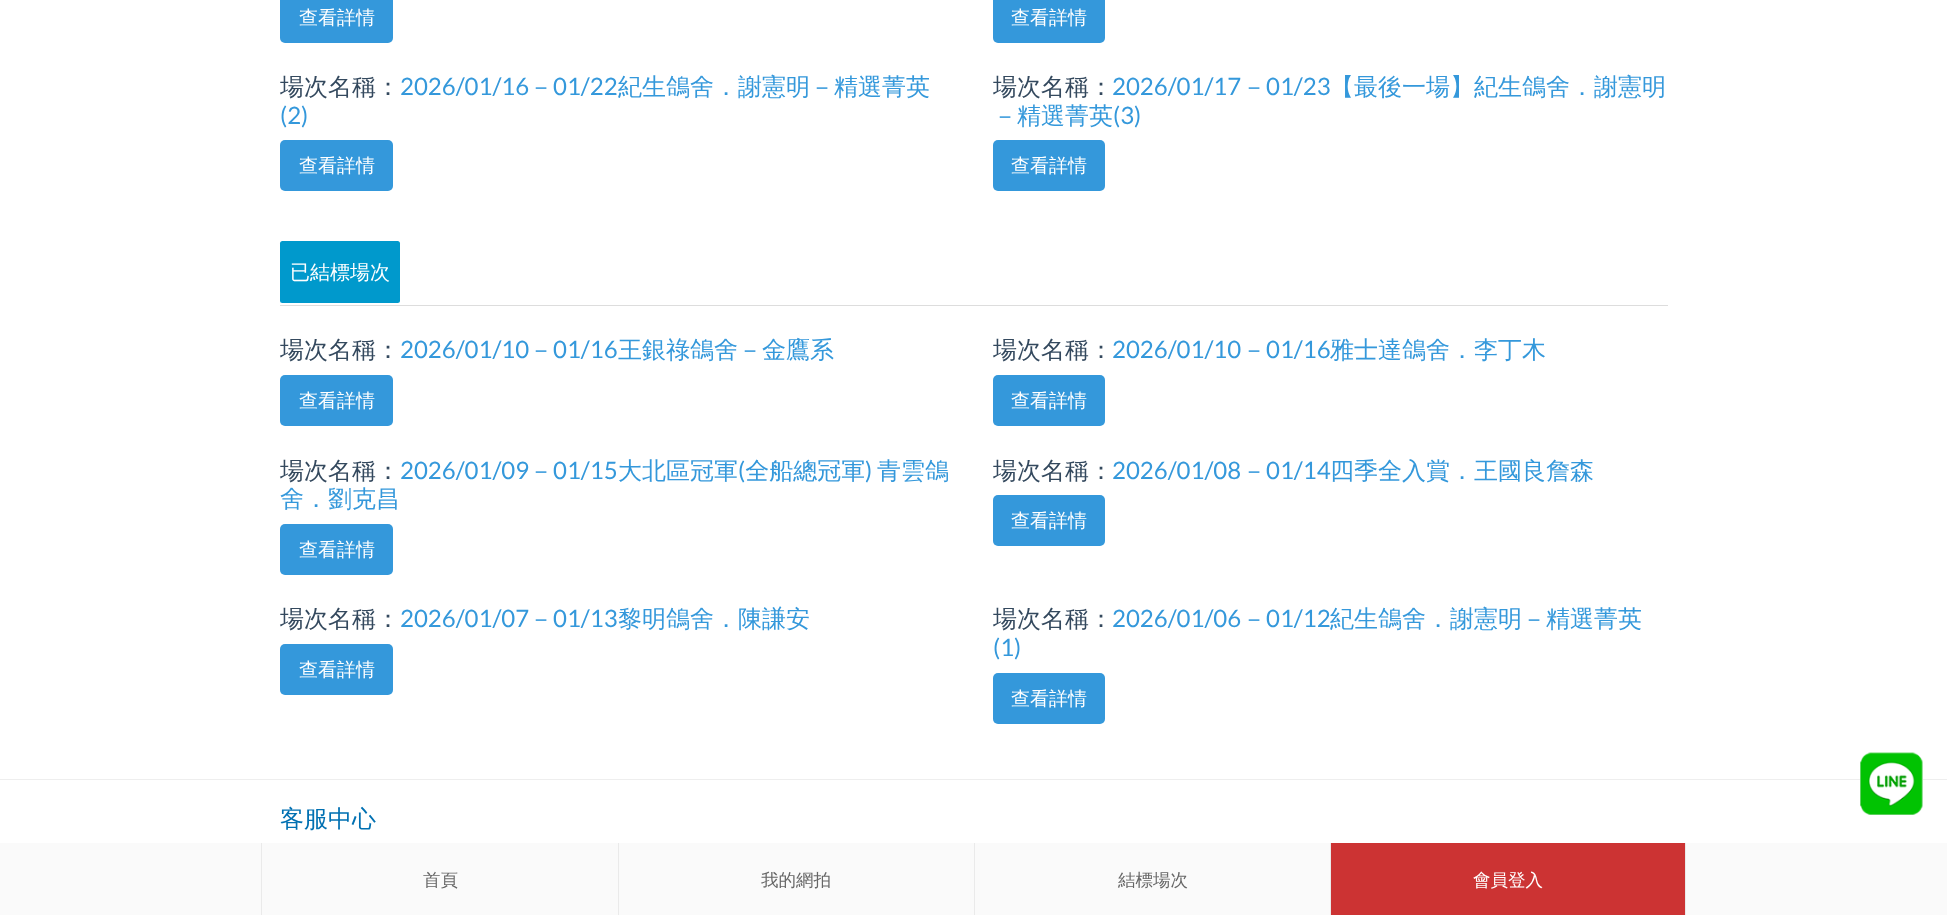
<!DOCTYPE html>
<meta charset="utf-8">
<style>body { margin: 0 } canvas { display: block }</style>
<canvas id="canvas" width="1947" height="915"></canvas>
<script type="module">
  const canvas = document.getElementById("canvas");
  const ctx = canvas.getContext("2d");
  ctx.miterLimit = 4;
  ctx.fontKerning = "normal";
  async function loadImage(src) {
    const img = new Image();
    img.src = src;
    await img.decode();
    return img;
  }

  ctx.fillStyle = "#ffffff";
  ctx.fillRect(0, 0, 1947, 915);
  ctx.fillStyle = "#3498db";
  ctx.beginPath();
  ctx.roundRect(280, -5, 113, 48, 5);
  ctx.fill();
  ctx.font = "500 19px WenQuanYi Zen Hei";
  ctx.fillStyle = "#ffffff";
  ctx.fillText("查看詳情", 299, 24);
  ctx.fillStyle = "#3498db";
  ctx.beginPath();
  ctx.roundRect(993, -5, 112, 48, 5);
  ctx.fill();
  ctx.fillStyle = "#ffffff";
  ctx.fillText("查看詳情", 1011, 24);
  ctx.font = "500 24px WenQuanYi Zen Hei";
  ctx.fillStyle = "#34495e";
  ctx.fillText("場次名稱：", 280, 95);
  ctx.font = "24px Lato";
  ctx.fillStyle = "#3498db";
  ctx.fillText("2026/01/16", 400, 95);
  ctx.font = "500 24px WenQuanYi Zen Hei";
  ctx.fillText("－", 529, 95);
  ctx.font = "24px Lato";
  ctx.fillText("01/22", 553, 95);
  ctx.font = "500 24px WenQuanYi Zen Hei";
  ctx.fillText("紀生鴿舍．謝憲明－精選菁英", 618, 95);
  ctx.font = "24px Lato";
  ctx.fillText("(2)", 280, 124);
  ctx.beginPath();
  ctx.roundRect(280, 140, 113, 51, 5);
  ctx.fill();
  ctx.font = "500 19px WenQuanYi Zen Hei";
  ctx.fillStyle = "#ffffff";
  ctx.fillText("查看詳情", 299, 172);
  ctx.font = "500 24px WenQuanYi Zen Hei";
  ctx.fillStyle = "#34495e";
  ctx.fillText("場次名稱：", 993, 95);
  ctx.font = "24px Lato";
  ctx.fillStyle = "#3498db";
  ctx.fillText("2026/01/17", 1112, 95);
  ctx.font = "500 24px WenQuanYi Zen Hei";
  ctx.fillText("－", 1242, 95);
  ctx.font = "24px Lato";
  ctx.fillText("01/23", 1266, 95);
  ctx.font = "500 24px WenQuanYi Zen Hei";
  ctx.fillText("【最後一場】紀生鴿舍．謝憲明", 1330, 95);
  ctx.fillText("－精選菁英", 993, 124);
  ctx.font = "24px Lato";
  ctx.fillText("(3)", 1113, 124);
  ctx.beginPath();
  ctx.roundRect(993, 140, 112, 51, 5);
  ctx.fill();
  ctx.font = "500 19px WenQuanYi Zen Hei";
  ctx.fillStyle = "#ffffff";
  ctx.fillText("查看詳情", 1011, 172);
  ctx.fillStyle = "#dddddd";
  ctx.fillRect(280, 305, 1388, 1);
  ctx.fillStyle = "#0099cc";
  ctx.beginPath();
  ctx.roundRect(280, 241, 120, 62, 2.5);
  ctx.fill();
  ctx.font = "500 20px WenQuanYi Zen Hei";
  ctx.fillStyle = "#ffffff";
  ctx.fillText("已結標場次", 290, 279);
  ctx.font = "500 24px WenQuanYi Zen Hei";
  ctx.fillStyle = "#34495e";
  ctx.fillText("場次名稱：", 280, 358);
  ctx.font = "24px Lato";
  ctx.fillStyle = "#3498db";
  ctx.fillText("2026/01/10", 400, 358);
  ctx.font = "500 24px WenQuanYi Zen Hei";
  ctx.fillText("－", 529, 358);
  ctx.font = "24px Lato";
  ctx.fillText("01/16", 553, 358);
  ctx.font = "500 24px WenQuanYi Zen Hei";
  ctx.fillText("王銀祿鴿舍－金鷹系", 618, 358);
  ctx.beginPath();
  ctx.roundRect(280, 375, 113, 51, 5);
  ctx.fill();
  ctx.font = "500 19px WenQuanYi Zen Hei";
  ctx.fillStyle = "#ffffff";
  ctx.fillText("查看詳情", 299, 407);
  ctx.font = "500 24px WenQuanYi Zen Hei";
  ctx.fillStyle = "#34495e";
  ctx.fillText("場次名稱：", 993, 358);
  ctx.font = "24px Lato";
  ctx.fillStyle = "#3498db";
  ctx.fillText("2026/01/10", 1112, 358);
  ctx.font = "500 24px WenQuanYi Zen Hei";
  ctx.fillText("－", 1242, 358);
  ctx.font = "24px Lato";
  ctx.fillText("01/16", 1266, 358);
  ctx.font = "500 24px WenQuanYi Zen Hei";
  ctx.fillText("雅士達鴿舍．李丁木", 1330, 358);
  ctx.beginPath();
  ctx.roundRect(993, 375, 112, 51, 5);
  ctx.fill();
  ctx.font = "500 19px WenQuanYi Zen Hei";
  ctx.fillStyle = "#ffffff";
  ctx.fillText("查看詳情", 1011, 407);
  ctx.font = "500 24px WenQuanYi Zen Hei";
  ctx.fillStyle = "#34495e";
  ctx.fillText("場次名稱：", 280, 479);
  ctx.fillStyle = "#3498db";
  ctx.fillText("大北區冠軍 全船總冠軍", 618, 479);
  ctx.fillText("青雲鴿", 877, 479);
  ctx.font = "24px Lato";
  ctx.fillText("2026/01/09", 400, 479);
  ctx.font = "500 24px WenQuanYi Zen Hei";
  ctx.fillText("－", 529, 479);
  ctx.font = "24px Lato";
  ctx.fillText("01/15", 553, 479);
  ctx.fillText("(", 738, 479);
  ctx.fillText(")", 865, 479);
  ctx.font = "500 24px WenQuanYi Zen Hei";
  ctx.fillText("舍．劉克昌", 280, 507);
  ctx.beginPath();
  ctx.roundRect(280, 524, 113, 51, 5);
  ctx.fill();
  ctx.font = "500 19px WenQuanYi Zen Hei";
  ctx.fillStyle = "#ffffff";
  ctx.fillText("查看詳情", 299, 556);
  ctx.font = "500 24px WenQuanYi Zen Hei";
  ctx.fillStyle = "#34495e";
  ctx.fillText("場次名稱：", 993, 479);
  ctx.font = "24px Lato";
  ctx.fillStyle = "#3498db";
  ctx.fillText("2026/01/08", 1112, 479);
  ctx.font = "500 24px WenQuanYi Zen Hei";
  ctx.fillText("－", 1242, 479);
  ctx.font = "24px Lato";
  ctx.fillText("01/14", 1266, 479);
  ctx.font = "500 24px WenQuanYi Zen Hei";
  ctx.fillText("四季全入賞．王國良詹森", 1330, 479);
  ctx.beginPath();
  ctx.roundRect(993, 495, 112, 51, 5);
  ctx.fill();
  ctx.font = "500 19px WenQuanYi Zen Hei";
  ctx.fillStyle = "#ffffff";
  ctx.fillText("查看詳情", 1011, 527);
  ctx.font = "500 24px WenQuanYi Zen Hei";
  ctx.fillStyle = "#34495e";
  ctx.fillText("場次名稱：", 280, 627);
  ctx.font = "24px Lato";
  ctx.fillStyle = "#3498db";
  ctx.fillText("2026/01/07", 400, 627);
  ctx.font = "500 24px WenQuanYi Zen Hei";
  ctx.fillText("－", 529, 627);
  ctx.font = "24px Lato";
  ctx.fillText("01/13", 553, 627);
  ctx.font = "500 24px WenQuanYi Zen Hei";
  ctx.fillText("黎明鴿舍．陳謙安", 618, 627);
  ctx.beginPath();
  ctx.roundRect(280, 644, 113, 51, 5);
  ctx.fill();
  ctx.font = "500 19px WenQuanYi Zen Hei";
  ctx.fillStyle = "#ffffff";
  ctx.fillText("查看詳情", 299, 676);
  ctx.font = "500 24px WenQuanYi Zen Hei";
  ctx.fillStyle = "#34495e";
  ctx.fillText("場次名稱：", 993, 627);
  ctx.font = "24px Lato";
  ctx.fillStyle = "#3498db";
  ctx.fillText("2026/01/06", 1112, 627);
  ctx.font = "500 24px WenQuanYi Zen Hei";
  ctx.fillText("－", 1242, 627);
  ctx.font = "24px Lato";
  ctx.fillText("01/12", 1266, 627);
  ctx.font = "500 24px WenQuanYi Zen Hei";
  ctx.fillText("紀生鴿舍．謝憲明－精選菁英", 1330, 627);
  ctx.font = "24px Lato";
  ctx.fillText("(1)", 993, 656);
  ctx.beginPath();
  ctx.roundRect(993, 673, 112, 51, 5);
  ctx.fill();
  ctx.font = "500 19px WenQuanYi Zen Hei";
  ctx.fillStyle = "#ffffff";
  ctx.fillText("查看詳情", 1011, 705);
  ctx.fillStyle = "#eeeeee";
  ctx.fillRect(0, 779, 1947, 1);
  ctx.fillStyle = "#efefef";
  ctx.beginPath();
  ctx.roundRect(1860, 753, 63, 62, 13);
  ctx.fill();
  ctx.drawImage(await loadImage("img1.png"), 1860, 752, 63, 63);
  ctx.font = "500 24px WenQuanYi Zen Hei";
  ctx.fillStyle = "#0070b2";
  ctx.fillText("客服中心", 280, 827);
  ctx.fillStyle = "#fafafa";
  ctx.fillRect(0, 843, 1947, 72);
  ctx.fillStyle = "#eaeaea";
  ctx.fillRect(261, 843, 1, 72);
  ctx.font = "500 17.5px WenQuanYi Zen Hei";
  ctx.fillStyle = "#666666";
  ctx.fillText("首頁", 423, 886);
  ctx.fillStyle = "#eaeaea";
  ctx.fillRect(618, 843, 1, 72);
  ctx.fillStyle = "#666666";
  ctx.fillText("我的網拍", 761, 886);
  ctx.fillStyle = "#eaeaea";
  ctx.fillRect(974, 843, 1, 72);
  ctx.fillStyle = "#666666";
  ctx.fillText("結標場次", 1118, 886);
  ctx.fillStyle = "#cc3333";
  ctx.fillRect(1331, 843, 354, 72);
  ctx.fillStyle = "#eaeaea";
  ctx.fillRect(1685, 843, 1, 72);
  ctx.fillRect(1330, 843, 1, 72);
  ctx.fillStyle = "#ffffff";
  ctx.fillText("會員登入", 1473, 886);
</script>
